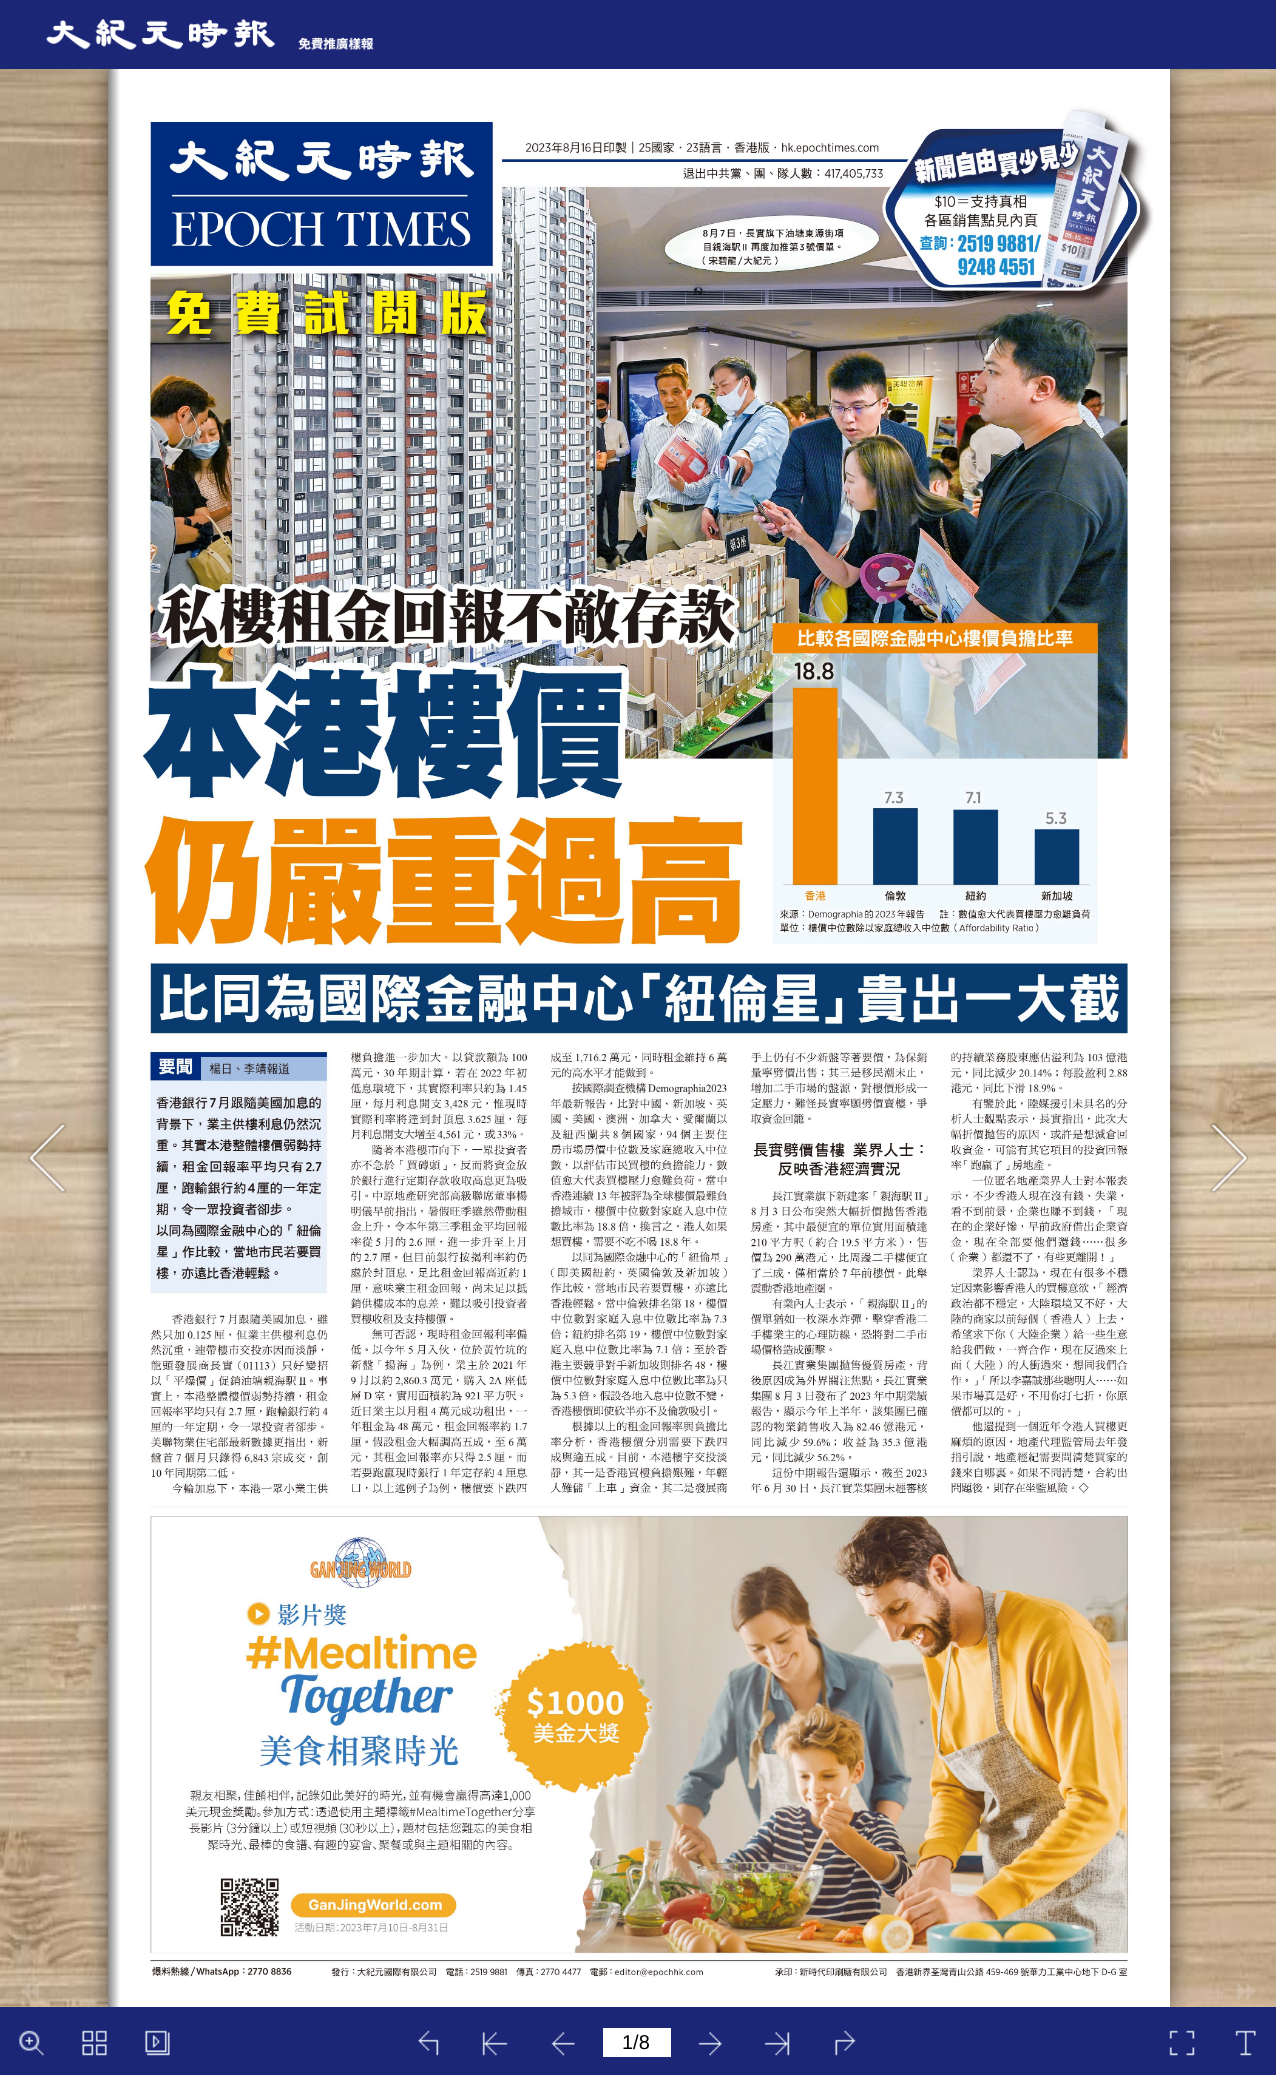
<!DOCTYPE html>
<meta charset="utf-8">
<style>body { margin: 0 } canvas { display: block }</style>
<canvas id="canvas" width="1276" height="2075"></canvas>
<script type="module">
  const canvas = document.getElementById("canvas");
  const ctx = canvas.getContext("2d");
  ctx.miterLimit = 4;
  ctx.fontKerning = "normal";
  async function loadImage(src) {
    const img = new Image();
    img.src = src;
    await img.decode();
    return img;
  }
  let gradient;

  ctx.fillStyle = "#ffffff";
  ctx.fillRect(0, 0, 1276, 2075);
  ctx.drawImage(await loadImage("img5.png"), 0, 69, 1276, 1938);
  ctx.fillStyle = "rgba(40, 40, 40, 0.7)";
  ctx.filter = "blur(11px)";
  ctx.beginPath();
  ctx.rect(108, 69, 1062, 1938);
  ctx.fill();
  ctx.filter = "none";
  ctx.fillStyle = "#1c2676";
  ctx.fillRect(0, 0, 1276, 69);
  ctx.drawImage(await loadImage("img1.png"), 46, 19, 328, 32);
  gradient = ctx.createLinearGradient(108, 1038, 120, 1038);
  gradient.addColorStop(0, "#898989");
  gradient.addColorStop(1, "#ffffff");
  ctx.fillStyle = gradient;
  ctx.fillRect(108, 69, 12, 1938);
  ctx.drawImage(await loadImage("img3.png"), 120, 2006, 1050, 1);
  ctx.drawImage(await loadImage("img4.png"), 120, 2006, 1050, 1);
  ctx.drawImage(await loadImage("img2.png"), 120, 69, 1050, 1938);
  ctx.drawImage(await loadImage("img6.png"), 28, 1123, 39, 70);
  ctx.drawImage(await loadImage("img7.png"), 1210, 1123, 39, 70);
  ctx.drawImage(await loadImage("img8.png"), 21, 1983, 19, 17);
  ctx.drawImage(await loadImage("img9.png"), 1237, 1983, 19, 17);
  ctx.fillStyle = "#1c2676";
  ctx.fillRect(0, 2007, 1276, 68);
  ctx.drawImage(await loadImage("img10.png"), 19, 2030, 25, 26);
  ctx.drawImage(await loadImage("img11.png"), 82, 2030, 25, 26);
  ctx.drawImage(await loadImage("img12.png"), 145, 2030, 25, 26);
  ctx.drawImage(await loadImage("img13.png"), 418, 2030, 21, 26);
  ctx.drawImage(await loadImage("img14.png"), 482, 2032, 26, 24);
  ctx.drawImage(await loadImage("img15.png"), 551, 2032, 24, 24);
  ctx.fillStyle = "#ffffff";
  ctx.fillRect(603, 2028, 68, 29);
  ctx.font = "20px Liberation Sans";
  ctx.fillStyle = "#000000";
  ctx.fillText("1/8", 622, 2049);
  ctx.drawImage(await loadImage("img16.png"), 698, 2032, 24, 24);
  ctx.drawImage(await loadImage("img17.png"), 764, 2032, 26, 24);
  ctx.drawImage(await loadImage("img18.png"), 835, 2030, 21, 26);
  ctx.drawImage(await loadImage("img19.png"), 1169, 2030, 26, 26);
  ctx.drawImage(await loadImage("img20.png"), 1235, 2030, 21, 26);
</script>
